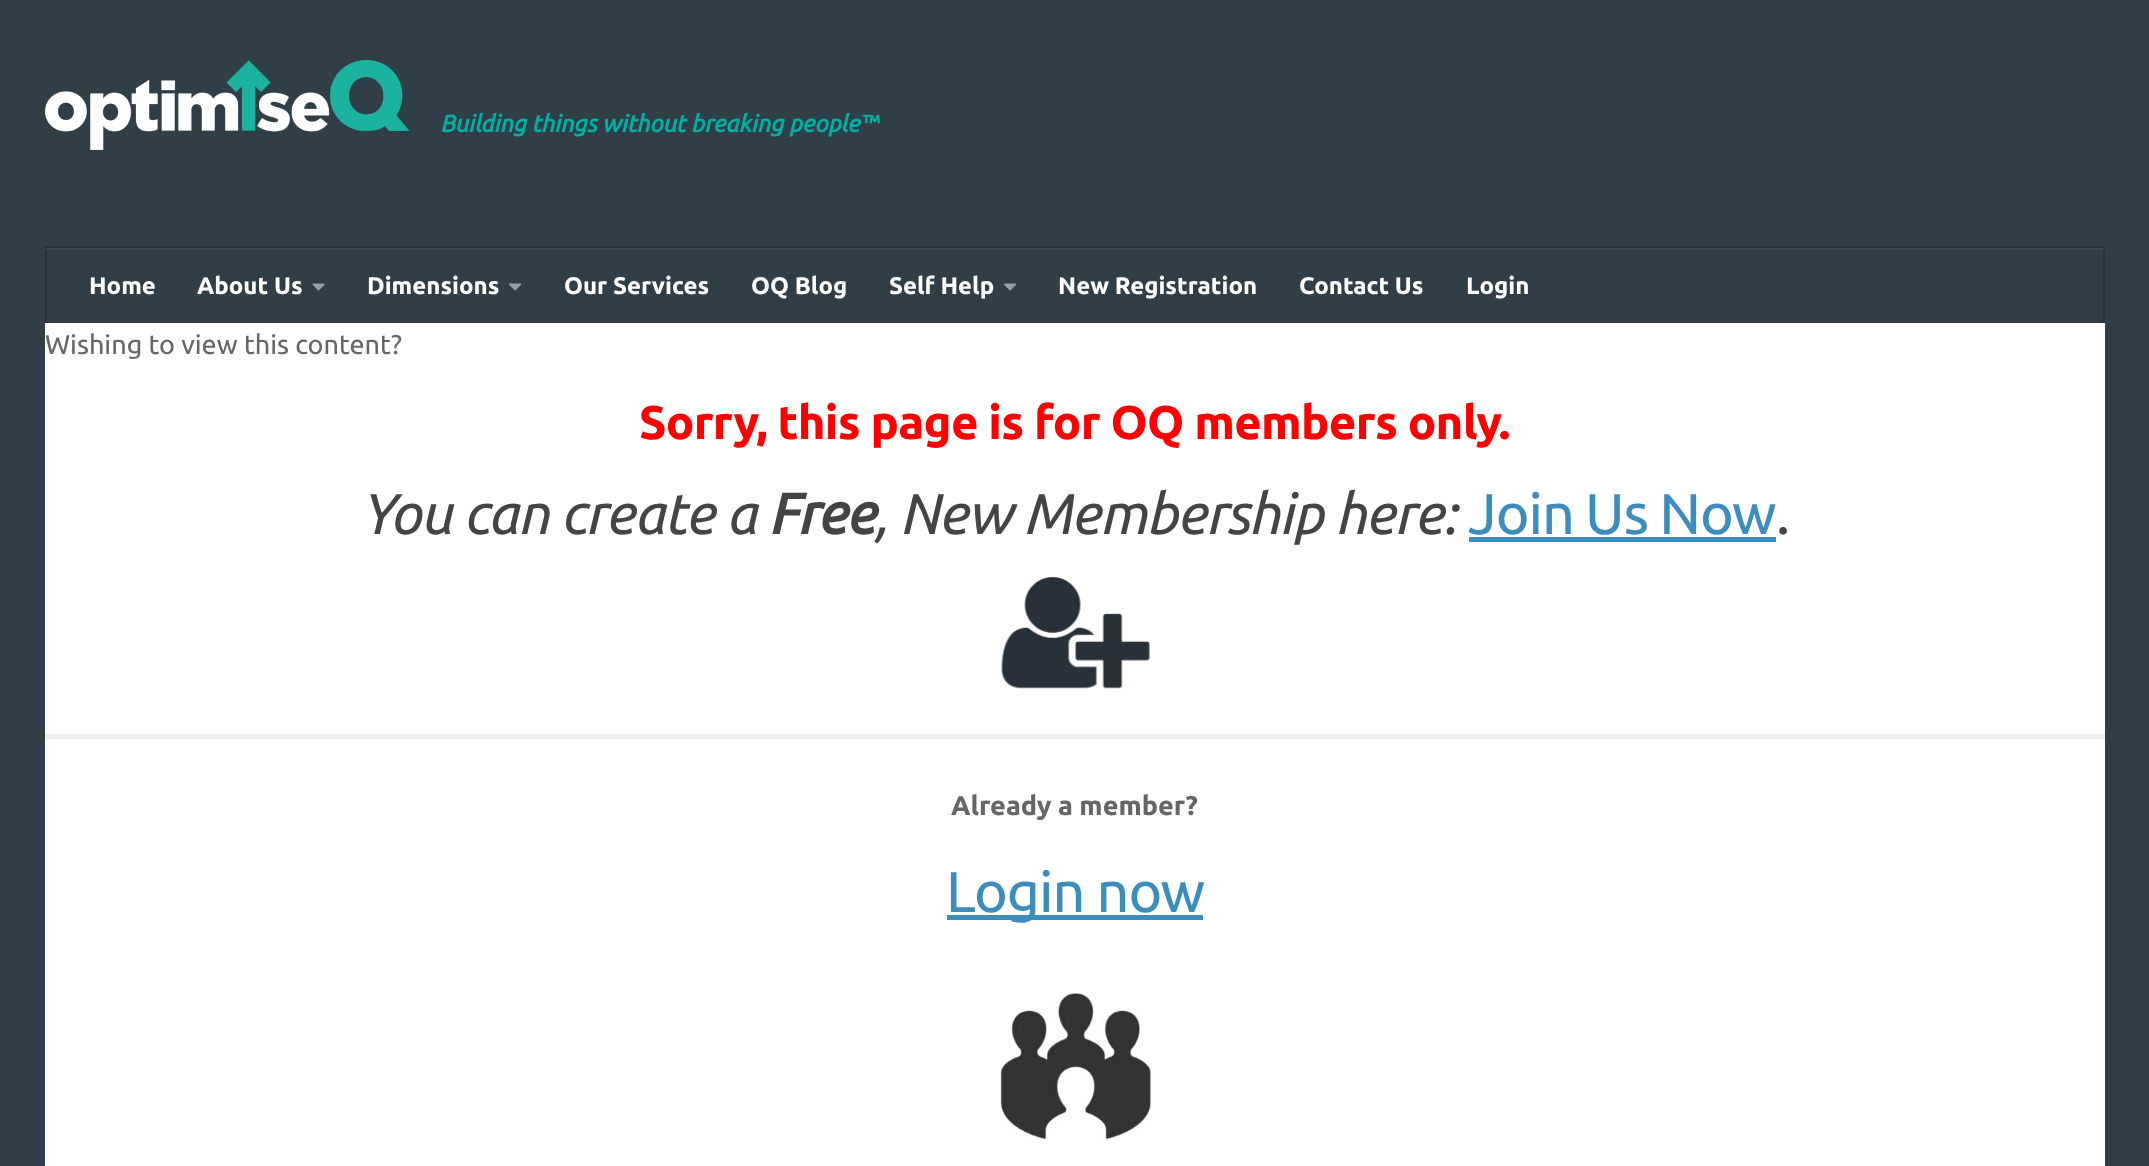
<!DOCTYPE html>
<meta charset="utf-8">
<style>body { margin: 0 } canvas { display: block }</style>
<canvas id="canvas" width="2149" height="1166"></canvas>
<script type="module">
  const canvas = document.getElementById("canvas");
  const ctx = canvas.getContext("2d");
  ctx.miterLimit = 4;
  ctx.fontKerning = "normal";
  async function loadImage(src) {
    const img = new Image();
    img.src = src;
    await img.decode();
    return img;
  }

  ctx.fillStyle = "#303e48";
  ctx.fillRect(0, 0, 2149, 1166);
  ctx.drawImage(await loadImage("img1.png"), 45, 60, 365, 90);
  ctx.font = "italic bold 24px Ubuntu";
  ctx.fillStyle = "#00b1a1";
  ctx.fillText("Building things without breaking people™", 440, 132);
  ctx.fillStyle = "#26323a";
  ctx.beginPath();
  ctx.moveTo(45, 246);
  ctx.lineTo(45, 248);
  ctx.lineTo(2104, 248);
  ctx.lineTo(2104, 321);
  ctx.lineTo(2105, 321);
  ctx.lineTo(2105, 246);
  ctx.closePath();
  ctx.fill();
  ctx.fillRect(2103, 248, 2, 75);
  ctx.fillRect(45, 248, 2, 75);
  ctx.fillStyle = "rgba(255, 255, 255, 0.05)";
  ctx.fillRect(45, 248, 2060, 2);
  ctx.font = "bold 24px Ubuntu";
  ctx.fillStyle = "#ffffff";
  ctx.fillText("Home", 89, 294);
  ctx.fillText("About Us", 197, 294);
  ctx.drawImage(await loadImage("img2.png"), 312, 283, 13, 8);
  ctx.fillText("Dimensions", 367, 294);
  ctx.drawImage(await loadImage("img3.png"), 509, 283, 13, 8);
  ctx.fillText("Our Services", 564, 294);
  ctx.fillText("OQ Blog", 751, 294);
  ctx.fillText("Self Help", 889, 294);
  ctx.drawImage(await loadImage("img3.png"), 1004, 283, 13, 8);
  ctx.fillText("New Registration", 1058, 294);
  ctx.fillText("Contact Us", 1299, 294);
  ctx.fillText("Login", 1466, 294);
  ctx.fillRect(45, 323, 2060, 843);
  ctx.font = "27px Ubuntu";
  ctx.fillStyle = "#666666";
  ctx.fillText("Wishing to view this content?", 45, 354);
  ctx.letterSpacing = "-0.75px";
  ctx.font = "bold 47.25px Ubuntu";
  ctx.fillStyle = "#ff0000";
  ctx.fillText("Sorry, this page is for OQ members only.", 639, 439);
  ctx.letterSpacing = "-1.05px";
  ctx.font = "italic 57.4px Ubuntu";
  ctx.fillStyle = "#444444";
  ctx.fillText("You can create a", 361, 534);
  ctx.font = "italic bold 57.4px Ubuntu";
  ctx.fillText("Free", 768, 534);
  ctx.font = "italic 57.4px Ubuntu";
  ctx.fillText(", New Membership here:", 874, 534);
  ctx.wordSpacing = "-1px";
  ctx.font = "57.4px Ubuntu";
  ctx.fillStyle = "#3b8dbd";
  ctx.fillText("Join Us Now", 1468, 534);
  ctx.fillRect(1469, 537, 307, 5);
  ctx.wordSpacing = "0px";
  ctx.fillStyle = "#444444";
  ctx.fillText(".", 1776, 534);
  ctx.drawImage(await loadImage("img4.png"), 1001, 577, 150, 112);
  ctx.fillStyle = "#eeeeee";
  ctx.fillRect(45, 734, 2060, 5);
  ctx.letterSpacing = "0px";
  ctx.font = "bold 27px Ubuntu";
  ctx.fillStyle = "#666666";
  ctx.fillText("Already a member?", 951, 815);
  ctx.fillStyle = "#3b8dbd";
  ctx.fillRect(947, 915, 256, 5);
  ctx.letterSpacing = "-1.05px";
  ctx.font = "57.4px Ubuntu";
  ctx.fillText("Login now", 946, 912);
  ctx.drawImage(await loadImage("img5.png"), 1000, 992, 152, 148);
</script>
